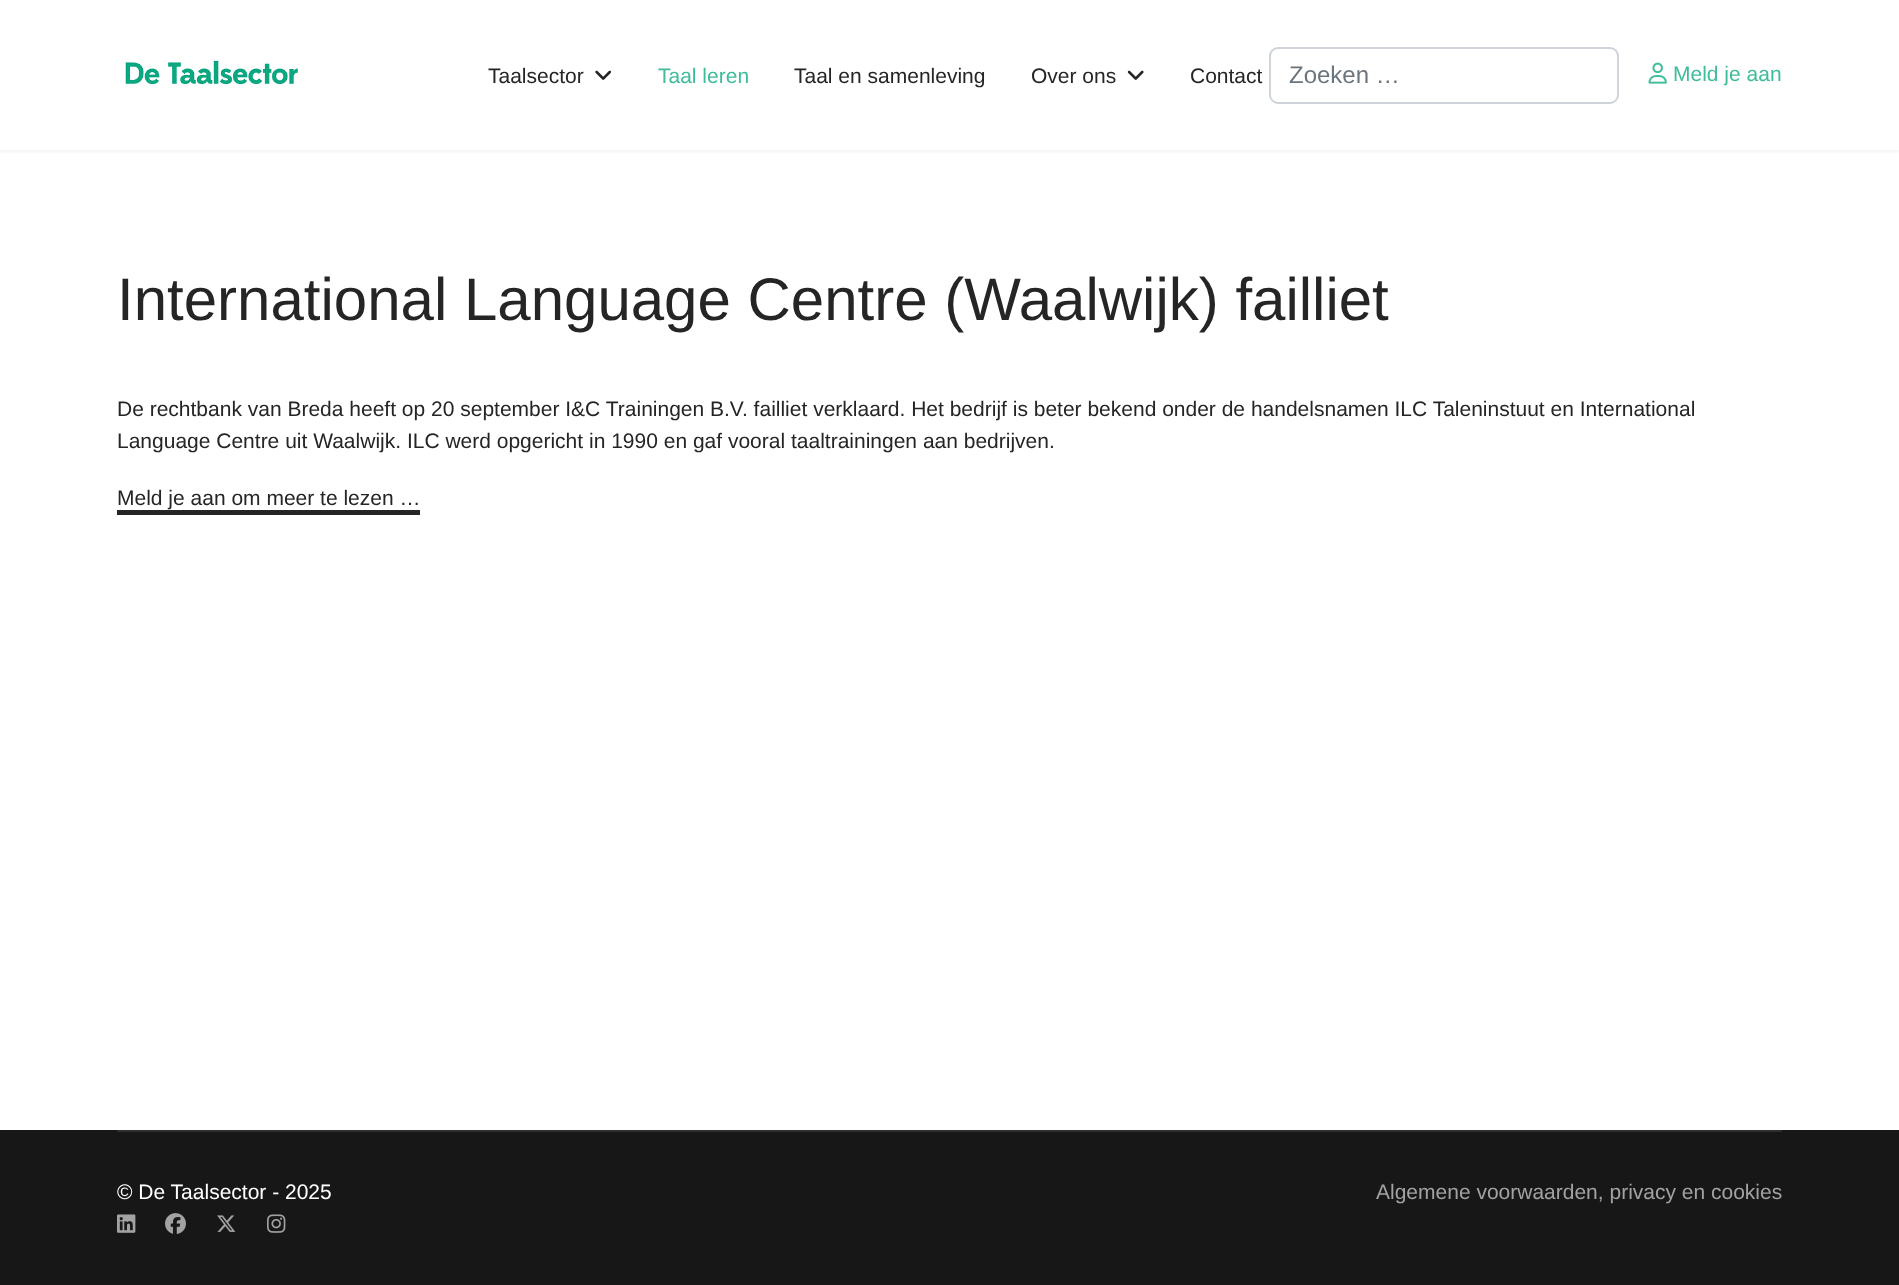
<!DOCTYPE html>
<meta charset="utf-8">
<style>body { margin: 0 } canvas { display: block }</style>
<canvas id="canvas" width="1899" height="1285"></canvas>
<script type="module">
  const canvas = document.getElementById("canvas");
  const ctx = canvas.getContext("2d");
  ctx.miterLimit = 4;
  ctx.fontKerning = "normal";
  async function loadImage(src) {
    const img = new Image();
    img.src = src;
    await img.decode();
    return img;
  }

  ctx.fillStyle = "#ffffff";
  ctx.fillRect(0, 0, 1899, 1285);
  ctx.save();
  ctx.beginPath();
  ctx.rect(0, 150, 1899, 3);
  ctx.clip();
  ctx.fillStyle = "rgba(0, 0, 0, 0.1)";
  ctx.filter = "blur(3px)";
  ctx.beginPath();
  ctx.rect(0, 0, 1899, 150);
  ctx.fill();
  ctx.filter = "none";
  ctx.restore();
  ctx.drawImage(await loadImage("img1.png"), 125, 60, 173, 24);
  ctx.font = "21px Liberation Sans";
  ctx.fillStyle = "#252525";
  ctx.fillText("Taalsector", 488, 83);
  ctx.drawImage(await loadImage("img2.png"), 595, 70, 16, 10);
  ctx.fillStyle = "#3ebc9c";
  ctx.fillText("Taal leren", 658, 83);
  ctx.fillStyle = "#252525";
  ctx.fillText("Taal en samenleving", 794, 83);
  ctx.fillText("Over ons", 1031, 83);
  ctx.drawImage(await loadImage("img3.png"), 1127, 70, 17, 10);
  ctx.fillText("Contact", 1190, 83);
  ctx.beginPath();
  ctx.roundRect(1270, 48, 348, 55, 8);
  ctx.strokeStyle = "#ced4da";
  ctx.lineWidth = 2;
  ctx.stroke();
  ctx.font = "24px Liberation Sans";
  ctx.fillStyle = "#6c757d";
  ctx.fillText("Zoeken …", 1289, 83);
  ctx.drawImage(await loadImage("img4.png"), 1648, 62, 19, 22);
  ctx.font = "21px Liberation Sans";
  ctx.fillStyle = "#3ebc9c";
  ctx.fillText("Meld je aan", 1673, 81);
  ctx.font = "60px Liberation Sans";
  ctx.fillStyle = "#252525";
  ctx.fillText("International Language Centre (Waalwijk) failliet", 117, 320);
  ctx.font = "21px Liberation Sans";
  ctx.fillText("De rechtbank van Breda heeft op 20 september I&C Trainingen B.V. failliet verklaard. Het bedrijf is beter bekend onder de handelsnamen ILC Taleninstuut en International", 117, 416);
  ctx.fillText("Language Centre uit Waalwijk. ILC werd opgericht in 1990 en gaf vooral taaltrainingen aan bedrijven.", 117, 448);
  ctx.fillText("Meld je aan om meer te lezen …", 117, 505);
  ctx.fillRect(117, 510, 303, 5);
  ctx.fillStyle = "#171717";
  ctx.fillRect(0, 1130, 1899, 155);
  ctx.fillStyle = "#2e2e2e";
  ctx.fillRect(117, 1130, 1665, 2);
  ctx.fillStyle = "#ffffff";
  ctx.fillText("© De Taalsector - 2025", 117, 1199);
  ctx.drawImage(await loadImage("img5.png"), 117, 1214, 19, 19);
  ctx.drawImage(await loadImage("img6.png"), 165, 1213, 21, 21);
  ctx.drawImage(await loadImage("img7.png"), 217, 1215, 19, 17);
  ctx.drawImage(await loadImage("img8.png"), 267, 1214, 19, 19);
  ctx.fillStyle = "#a2a2a2";
  ctx.fillText("Algemene voorwaarden, privacy en cookies", 1376, 1199);
</script>
